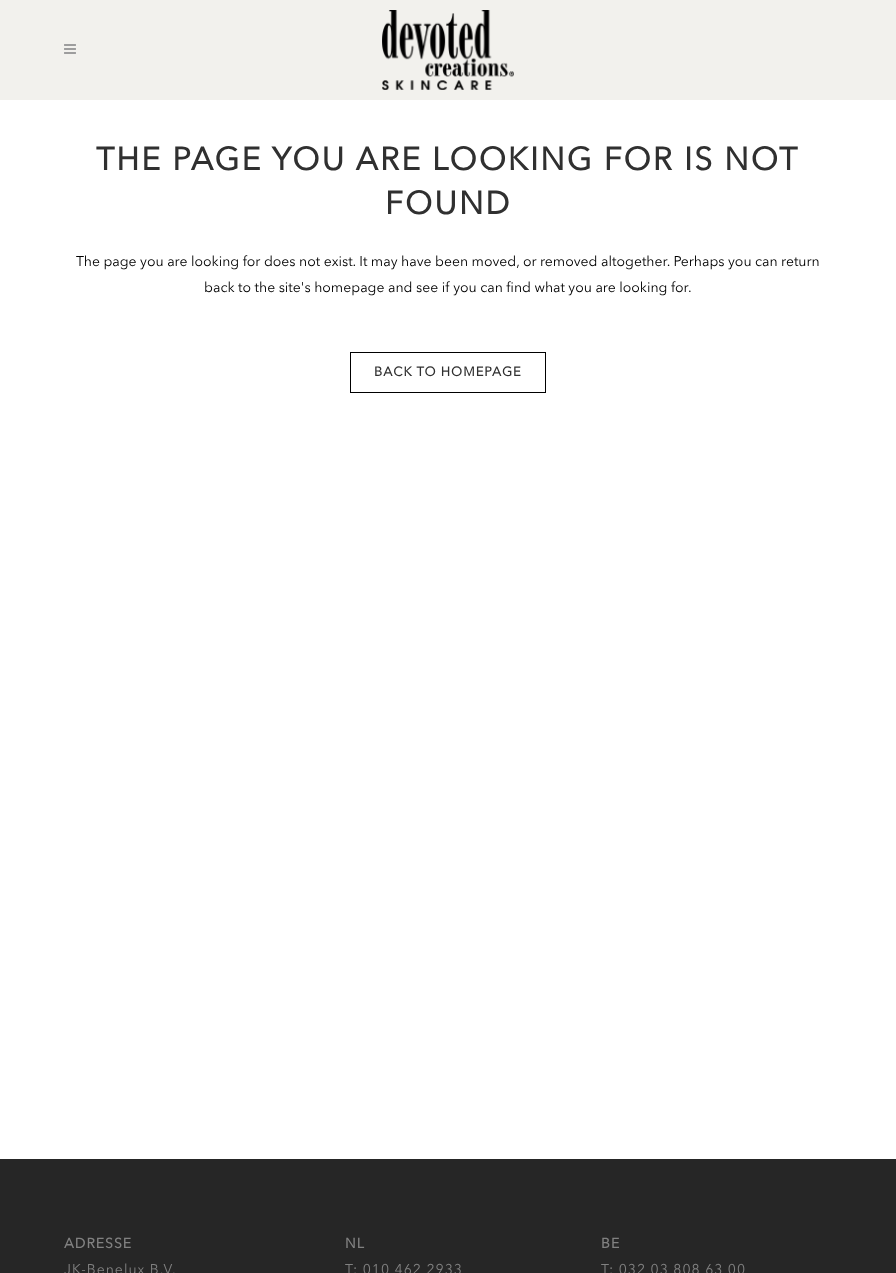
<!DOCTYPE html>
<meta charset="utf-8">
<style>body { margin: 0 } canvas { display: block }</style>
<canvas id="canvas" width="896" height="1273"></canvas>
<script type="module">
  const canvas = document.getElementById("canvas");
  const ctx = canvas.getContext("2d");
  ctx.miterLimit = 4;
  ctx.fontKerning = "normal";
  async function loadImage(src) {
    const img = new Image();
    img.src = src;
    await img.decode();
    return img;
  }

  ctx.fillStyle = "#ffffff";
  ctx.fillRect(0, 0, 896, 1273);
  ctx.fillStyle = "#f2f1ed";
  ctx.fillRect(0, 0, 896, 100);
  ctx.drawImage(await loadImage("img1.png"), 64, 44, 12, 10);
  ctx.drawImage(await loadImage("img2.png"), 382, 10, 132, 80);
  ctx.letterSpacing = "2px";
  ctx.font = "bold 32px Avenir Next";
  ctx.fillStyle = "#303030";
  ctx.fillText("THE PAGE YOU ARE LOOKING FOR IS NOT", 96, 170);
  ctx.fillText("FOUND", 385, 214);
  ctx.letterSpacing = "0px";
  ctx.font = "14px Avenir Next";
  ctx.fillStyle = "#000000";
  ctx.fillText("The page you are looking for does not exist. It may have been moved, or removed altogether. Perhaps you can return", 76, 266);
  ctx.fillText("back to the site's homepage and see if you can find what you are looking for.", 204, 292);
  ctx.strokeStyle = "#000000";
  ctx.strokeRect(350.5, 352.5, 195, 40);
  ctx.letterSpacing = "1px";
  ctx.font = "bold 13px Avenir Next";
  ctx.fillStyle = "#303030";
  ctx.fillText("BACK TO HOMEPAGE", 374, 376);
  ctx.fillStyle = "#262626";
  ctx.fillRect(0, 1159, 896, 114);
  ctx.font = "bold 14px Avenir Next";
  ctx.fillStyle = "#818181";
  ctx.fillText("ADRESSE", 64, 1248);
  ctx.font = "14px Avenir Next";
  ctx.fillText("JK-Benelux B.V.", 64, 1274);
  ctx.font = "bold 14px Avenir Next";
  ctx.fillText("NL", 345, 1248);
  ctx.font = "14px Avenir Next";
  ctx.fillText("T: 010 462 2933", 345, 1274);
  ctx.font = "bold 14px Avenir Next";
  ctx.fillText("BE", 601, 1248);
  ctx.font = "14px Avenir Next";
  ctx.fillText("T: 032 03 808 63 00", 601, 1274);
</script>
